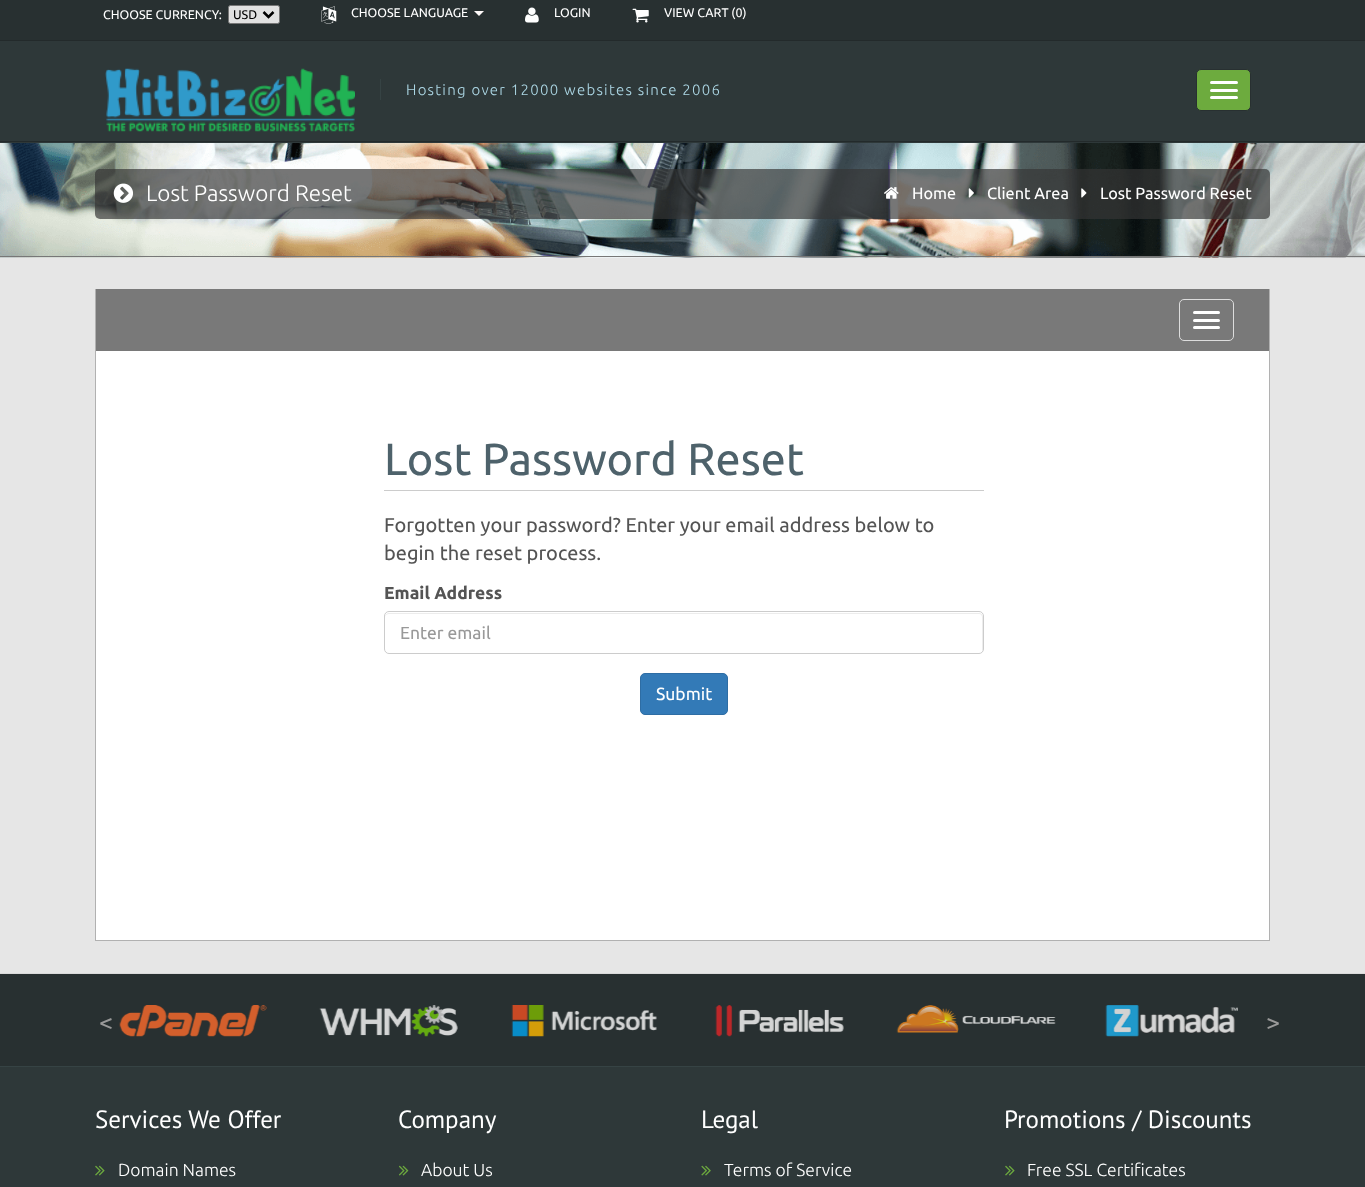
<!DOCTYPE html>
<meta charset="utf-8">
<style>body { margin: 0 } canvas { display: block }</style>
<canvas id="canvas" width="1365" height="1187"></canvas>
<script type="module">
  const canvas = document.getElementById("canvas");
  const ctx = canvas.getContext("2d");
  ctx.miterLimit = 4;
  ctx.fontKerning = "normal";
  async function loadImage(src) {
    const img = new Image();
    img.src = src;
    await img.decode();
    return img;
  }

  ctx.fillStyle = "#eaeaea";
  ctx.fillRect(0, 0, 1365, 1187);
  ctx.fillStyle = "#283031";
  ctx.fillRect(0, 0, 1365, 40);
  ctx.font = "12.5px Ubuntu";
  ctx.fillStyle = "#ffffff";
  ctx.fillText("CHOOSE CURRENCY:", 103, 19);
  ctx.fillStyle = "#e1e1e1";
  ctx.beginPath();
  ctx.roundRect(228.5, 5.5, 51, 18, 2);
  ctx.fill();
  ctx.strokeStyle = "#767676";
  ctx.stroke();
  ctx.beginPath();
  ctx.moveTo(263.5, 12);
  ctx.lineTo(268.5, 17);
  ctx.lineTo(273.5, 12);
  ctx.strokeStyle = "#000000";
  ctx.lineWidth = 2.5;
  ctx.stroke();
  ctx.fillStyle = "#000000";
  ctx.fillText("USD", 233, 19);
  ctx.drawImage(await loadImage("img1.png"), 321, 6, 16, 18);
  ctx.fillStyle = "#ffffff";
  ctx.fillText("CHOOSE LANGUAGE", 351, 17);
  ctx.fillStyle = "#fffafa";
  ctx.beginPath();
  ctx.moveTo(474, 11);
  ctx.lineTo(484, 11);
  ctx.lineTo(479, 16);
  ctx.closePath();
  ctx.fill();
  ctx.drawImage(await loadImage("img2.png"), 525, 7, 14, 16);
  ctx.fillStyle = "#ffffff";
  ctx.fillText("LOGIN", 554, 17);
  ctx.drawImage(await loadImage("img3.png"), 632, 8, 17, 15);
  ctx.fillText("VIEW CART (0)", 664, 17);
  ctx.fillStyle = "#2e3839";
  ctx.fillRect(0, 41, 1365, 102);
  ctx.fillStyle = "#232a2b";
  ctx.fillRect(0, 40, 1365, 1);
  ctx.fillRect(0, 141, 1365, 1);
  ctx.drawImage(await loadImage("img4.png"), 105, 68, 250, 64);
  ctx.fillStyle = "#364344";
  ctx.fillRect(380, 79, 1, 21);
  ctx.letterSpacing = "1.25px";
  ctx.font = "300 15px Ubuntu";
  ctx.fillStyle = "#add8e6";
  ctx.fillText("Hosting over 12000 websites since 2006", 406, 95);
  ctx.fillStyle = "#6dab3e";
  ctx.beginPath();
  ctx.roundRect(1196.5, 69.5, 54, 41, 4.5);
  ctx.fill();
  ctx.strokeStyle = "#283031";
  ctx.lineWidth = 1;
  ctx.stroke();
  ctx.fillStyle = "#ffffff";
  ctx.beginPath();
  ctx.roundRect(1210, 81, 28, 3, 1.5);
  ctx.fill();
  ctx.beginPath();
  ctx.roundRect(1210, 89, 28, 3, 1.5);
  ctx.fill();
  ctx.beginPath();
  ctx.roundRect(1210, 96, 28, 3, 1.5);
  ctx.fill();
  ctx.drawImage(await loadImage("img5.png"), 0, 143, 1365, 115);
  ctx.fillStyle = "#777777";
  ctx.fillRect(0, 256, 1365, 1);
  ctx.fillStyle = "rgba(53, 53, 53, 0.68)";
  ctx.beginPath();
  ctx.roundRect(95, 169, 1175, 50, 5);
  ctx.fill();
  ctx.drawImage(await loadImage("img6.png"), 113, 183, 20, 20);
  ctx.letterSpacing = "0px";
  ctx.font = "300 22.5px Ubuntu";
  ctx.fillStyle = "#ffffff";
  ctx.fillText("Lost Password Reset", 146, 201);
  ctx.drawImage(await loadImage("img7.png"), 884, 187, 15, 12);
  ctx.font = "16.25px Ubuntu";
  ctx.fillText("Home", 912, 199);
  ctx.drawImage(await loadImage("img8.png"), 968, 188, 6, 10);
  ctx.fillText("Client Area", 987, 199);
  ctx.drawImage(await loadImage("img9.png"), 1081, 188, 6, 10);
  ctx.fillText("Lost Password Reset", 1100, 199);
  ctx.fillStyle = "#e6e6e6";
  ctx.fillRect(0, 258, 1365, 715);
  ctx.fillStyle = "#ffffff";
  ctx.fillRect(96, 351, 1173, 589);
  ctx.fillStyle = "#b1b1b1";
  ctx.fillRect(1269, 289, 1, 652);
  ctx.fillRect(95, 940, 1175, 1);
  ctx.fillRect(95, 289, 1, 652);
  ctx.fillStyle = "#797979";
  ctx.fillRect(96, 289, 1173, 62);
  ctx.beginPath();
  ctx.roundRect(1179.5, 299.5, 54, 41, 4.5);
  ctx.strokeStyle = "#dddddd";
  ctx.stroke();
  ctx.fillStyle = "#ffffff";
  ctx.beginPath();
  ctx.roundRect(1193, 311, 27, 3, 1.5);
  ctx.fill();
  ctx.beginPath();
  ctx.roundRect(1193, 319, 27, 3, 1.5);
  ctx.fill();
  ctx.beginPath();
  ctx.roundRect(1193, 326, 27, 3, 1.5);
  ctx.fill();
  ctx.fillStyle = "#cccccc";
  ctx.fillRect(384, 490, 600, 1);
  ctx.font = "45px Ubuntu";
  ctx.fillStyle = "#4e626b";
  ctx.fillText("Lost Password Reset", 384, 475);
  ctx.font = "20px Ubuntu";
  ctx.fillStyle = "#545454";
  ctx.fillText("Forgotten your password? Enter your email address below to", 384, 532);
  ctx.fillText("begin the reset process.", 384, 560);
  ctx.font = "bold 17.5px Ubuntu";
  ctx.fillText("Email Address", 384, 599);
  ctx.fillStyle = "#ececec";
  ctx.beginPath();
  ctx.moveTo(389, 614);
  ctx.lineTo(979, 614);
  ctx.bezierCurveTo(981, 614, 982, 615, 982, 618);
  ctx.lineTo(982, 652);
  ctx.bezierCurveTo(982, 651, 983, 650, 983, 649);
  ctx.lineTo(983, 617);
  ctx.bezierCurveTo(983, 615, 981, 613, 979, 613);
  ctx.lineTo(389, 613);
  ctx.bezierCurveTo(387, 613, 385, 615, 385, 617);
  ctx.lineTo(385, 618);
  ctx.bezierCurveTo(385, 615, 387, 614, 389, 614);
  ctx.closePath();
  ctx.fill();
  ctx.beginPath();
  ctx.roundRect(384.5, 611.5, 599, 42, 4.5);
  ctx.strokeStyle = "#cccccc";
  ctx.stroke();
  ctx.font = "17.5px Ubuntu";
  ctx.fillStyle = "#999999";
  ctx.fillText("Enter email", 400, 639);
  ctx.fillStyle = "#337ab7";
  ctx.beginPath();
  ctx.roundRect(640.5, 673.5, 87, 41, 4.5);
  ctx.fill();
  ctx.strokeStyle = "#2e6da4";
  ctx.stroke();
  ctx.fillStyle = "#ffffff";
  ctx.fillText("Submit", 656, 700);
  ctx.fillStyle = "#283031";
  ctx.fillRect(0, 974, 1365, 92);
  ctx.fillStyle = "#dadada";
  ctx.fillRect(0, 973, 1365, 1);
  ctx.font = "25px Ubuntu";
  ctx.fillStyle = "#999999";
  ctx.fillText("<", 99, 1031);
  ctx.drawImage(await loadImage("img10.png"), 119, 1005, 148, 32);
  ctx.drawImage(await loadImage("img11.png"), 319, 1005, 139, 32);
  ctx.drawImage(await loadImage("img12.png"), 511, 1005, 146, 32);
  ctx.drawImage(await loadImage("img13.png"), 715, 1005, 129, 32);
  ctx.drawImage(await loadImage("img14.png"), 896, 1005, 160, 28);
  ctx.drawImage(await loadImage("img15.png"), 1105, 1005, 133, 32);
  ctx.fillText(">", 1266, 1031);
  ctx.fillStyle = "#2e3839";
  ctx.fillRect(0, 1067, 1365, 120);
  ctx.fillStyle = "#364344";
  ctx.fillRect(0, 1066, 1365, 1);
  ctx.font = "25px PT Sans";
  ctx.fillStyle = "#ffffff";
  ctx.fillText("Services We Offer", 95, 1128);
  ctx.drawImage(await loadImage("img16.png"), 95, 1165, 10, 11);
  ctx.font = "300 17.5px Ubuntu";
  ctx.fillText("Domain Names", 118, 1176);
  ctx.font = "25px PT Sans";
  ctx.fillText("Company", 398, 1128);
  ctx.drawImage(await loadImage("img17.png"), 399, 1165, 10, 11);
  ctx.font = "300 17.5px Ubuntu";
  ctx.fillText("About Us", 421, 1176);
  ctx.font = "25px PT Sans";
  ctx.fillText("Legal", 701, 1128);
  ctx.drawImage(await loadImage("img18.png"), 701, 1165, 10, 11);
  ctx.font = "300 17.5px Ubuntu";
  ctx.fillText("Terms of Service", 724, 1176);
  ctx.font = "25px PT Sans";
  ctx.fillText("Promotions / Discounts", 1004, 1128);
  ctx.drawImage(await loadImage("img16.png"), 1005, 1165, 10, 11);
  ctx.font = "300 17.5px Ubuntu";
  ctx.fillText("Free SSL Certificates", 1027, 1176);
</script>
